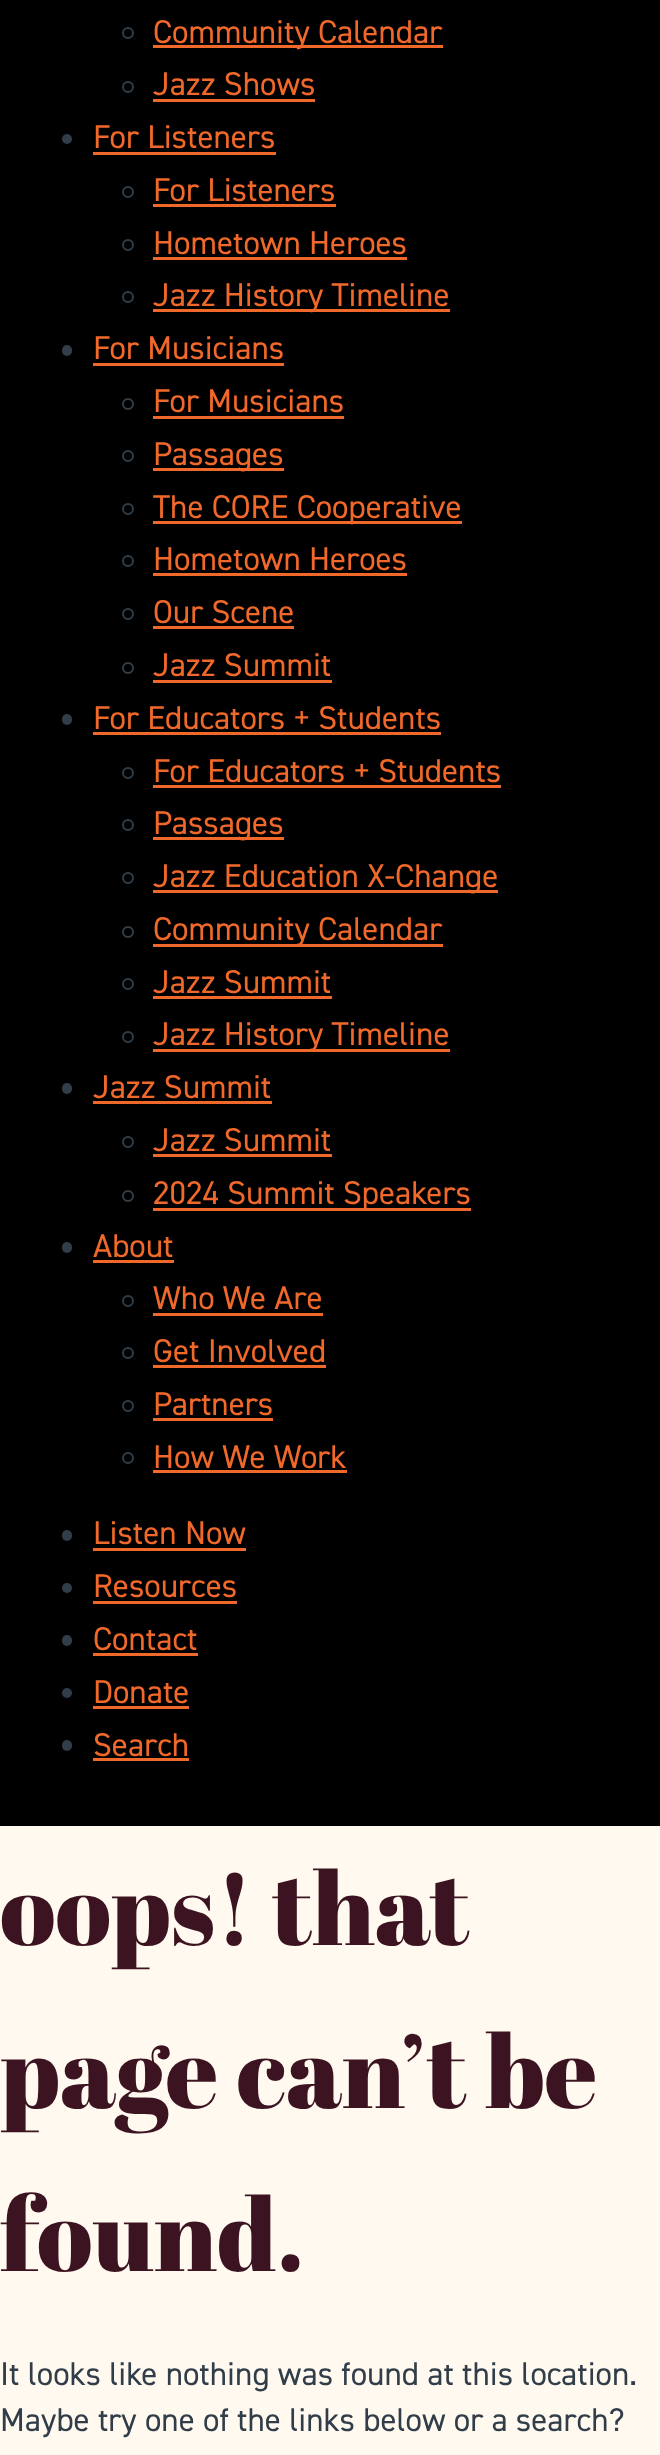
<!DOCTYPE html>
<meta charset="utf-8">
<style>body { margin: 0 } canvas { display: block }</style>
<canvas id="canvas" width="660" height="2455"></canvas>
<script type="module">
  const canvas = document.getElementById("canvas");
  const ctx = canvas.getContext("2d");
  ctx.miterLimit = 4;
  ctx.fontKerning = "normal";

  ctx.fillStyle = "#fff9f0";
  ctx.fillRect(0, 0, 660, 2455);
  ctx.fillStyle = "#000000";
  ctx.fillRect(0, 0, 660, 1826);
  ctx.beginPath();
  ctx.arc(128, 33, 5, 0, Math.PI * 2);
  ctx.strokeStyle = "#313e49";
  ctx.lineWidth = 2;
  ctx.stroke();
  ctx.fillStyle = "#f0692a";
  ctx.fillRect(153, 45, 290, 3);
  ctx.font = "33px 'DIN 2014'";
  ctx.fillText("Community Calendar", 153, 43);
  ctx.beginPath();
  ctx.arc(128, 87, 5, 0, Math.PI * 2);
  ctx.stroke();
  ctx.fillText("Jazz Shows", 153, 95);
  ctx.fillRect(153, 99, 162, 3);
  ctx.fillStyle = "#313e49";
  ctx.beginPath();
  ctx.arc(67, 139, 5, 0, Math.PI * 2);
  ctx.fill();
  ctx.fillStyle = "#f0692a";
  ctx.fillText("For Listeners", 93, 148);
  ctx.fillRect(93, 152, 183, 3);
  ctx.beginPath();
  ctx.arc(128, 192, 5, 0, Math.PI * 2);
  ctx.stroke();
  ctx.fillText("For Listeners", 153, 201);
  ctx.fillRect(153, 204, 183, 3);
  ctx.beginPath();
  ctx.arc(128, 245, 5, 0, Math.PI * 2);
  ctx.stroke();
  ctx.fillText("Hometown Heroes", 153, 254);
  ctx.fillRect(153, 257, 254, 3);
  ctx.beginPath();
  ctx.arc(128, 297, 5, 0, Math.PI * 2);
  ctx.stroke();
  ctx.fillRect(153, 309, 297, 3);
  ctx.fillText("Jazz History Timeline", 153, 306);
  ctx.fillStyle = "#313e49";
  ctx.beginPath();
  ctx.roundRect(62, 345, 10, 11, 5);
  ctx.fill();
  ctx.fillStyle = "#f0692a";
  ctx.fillText("For Musicians", 93, 359);
  ctx.fillRect(93, 363, 191, 3);
  ctx.beginPath();
  ctx.arc(128, 404, 5, 0, Math.PI * 2);
  ctx.stroke();
  ctx.fillText("For Musicians", 153, 412);
  ctx.fillRect(153, 416, 191, 3);
  ctx.beginPath();
  ctx.arc(128, 456, 5, 0, Math.PI * 2);
  ctx.stroke();
  ctx.fillRect(153, 468, 131, 3);
  ctx.fillText("Passages", 153, 465);
  ctx.beginPath();
  ctx.arc(128, 509, 5, 0, Math.PI * 2);
  ctx.stroke();
  ctx.fillRect(153, 521, 309, 3);
  ctx.fillText("The CORE Cooperative", 153, 518);
  ctx.beginPath();
  ctx.arc(128, 561, 5, 0, Math.PI * 2);
  ctx.stroke();
  ctx.fillText("Hometown Heroes", 153, 570);
  ctx.fillRect(153, 573, 254, 3);
  ctx.beginPath();
  ctx.arc(128, 614, 5, 0, Math.PI * 2);
  ctx.stroke();
  ctx.fillText("Our Scene", 153, 623);
  ctx.fillRect(153, 626, 141, 3);
  ctx.beginPath();
  ctx.arc(128, 668, 5, 0, Math.PI * 2);
  ctx.stroke();
  ctx.fillText("Jazz Summit", 153, 676);
  ctx.fillRect(153, 680, 179, 3);
  ctx.fillStyle = "#313e49";
  ctx.beginPath();
  ctx.roundRect(62, 714, 10, 11, 5);
  ctx.fill();
  ctx.fillStyle = "#f0692a";
  ctx.fillText("For Educators + Students", 93, 729);
  ctx.fillRect(93, 732, 348, 3);
  ctx.beginPath();
  ctx.arc(128, 773, 5, 0, Math.PI * 2);
  ctx.stroke();
  ctx.fillText("For Educators + Students", 153, 782);
  ctx.fillRect(153, 785, 348, 3);
  ctx.beginPath();
  ctx.arc(128, 825, 5, 0, Math.PI * 2);
  ctx.stroke();
  ctx.fillRect(153, 837, 131, 3);
  ctx.fillText("Passages", 153, 834);
  ctx.beginPath();
  ctx.arc(128, 878, 5, 0, Math.PI * 2);
  ctx.stroke();
  ctx.fillRect(153, 890, 345, 3);
  ctx.fillText("Jazz Education X-Change", 153, 887);
  ctx.beginPath();
  ctx.arc(128, 932, 5, 0, Math.PI * 2);
  ctx.stroke();
  ctx.fillRect(153, 944, 290, 3);
  ctx.fillText("Community Calendar", 153, 940);
  ctx.beginPath();
  ctx.arc(128, 984, 5, 0, Math.PI * 2);
  ctx.stroke();
  ctx.fillText("Jazz Summit", 153, 993);
  ctx.fillRect(153, 996, 179, 3);
  ctx.beginPath();
  ctx.arc(128, 1037, 5, 0, Math.PI * 2);
  ctx.stroke();
  ctx.fillRect(153, 1049, 297, 3);
  ctx.fillText("Jazz History Timeline", 153, 1045);
  ctx.fillStyle = "#313e49";
  ctx.beginPath();
  ctx.roundRect(62, 1083, 10, 11, 5);
  ctx.fill();
  ctx.fillStyle = "#f0692a";
  ctx.fillText("Jazz Summit", 93, 1098);
  ctx.fillRect(93, 1101, 179, 3);
  ctx.beginPath();
  ctx.arc(128, 1142, 5, 0, Math.PI * 2);
  ctx.stroke();
  ctx.fillText("Jazz Summit", 153, 1151);
  ctx.fillRect(153, 1154, 179, 3);
  ctx.beginPath();
  ctx.arc(128, 1196, 5, 0, Math.PI * 2);
  ctx.stroke();
  ctx.fillRect(153, 1208, 318, 3);
  ctx.fillText("2024 Summit Speakers", 153, 1204);
  ctx.fillStyle = "#313e49";
  ctx.beginPath();
  ctx.roundRect(62, 1242, 10, 11, 5);
  ctx.fill();
  ctx.fillStyle = "#f0692a";
  ctx.fillText("About", 93, 1257);
  ctx.fillRect(93, 1260, 81, 3);
  ctx.beginPath();
  ctx.arc(128, 1301, 5, 0, Math.PI * 2);
  ctx.stroke();
  ctx.fillText("Who We Are", 153, 1309);
  ctx.fillRect(153, 1313, 170, 3);
  ctx.beginPath();
  ctx.arc(128, 1353, 5, 0, Math.PI * 2);
  ctx.stroke();
  ctx.fillText("Get Involved", 153, 1362);
  ctx.fillRect(153, 1365, 173, 3);
  ctx.beginPath();
  ctx.arc(128, 1406, 5, 0, Math.PI * 2);
  ctx.stroke();
  ctx.fillText("Partners", 153, 1415);
  ctx.fillRect(153, 1418, 120, 3);
  ctx.beginPath();
  ctx.arc(128, 1458, 5, 0, Math.PI * 2);
  ctx.stroke();
  ctx.fillText("How We Work", 153, 1468);
  ctx.fillRect(153, 1470, 194, 3);
  ctx.fillStyle = "#313e49";
  ctx.beginPath();
  ctx.roundRect(62, 1530, 10, 11, 5);
  ctx.fill();
  ctx.fillStyle = "#f0692a";
  ctx.fillText("Listen Now", 93, 1544);
  ctx.fillRect(93, 1548, 153, 3);
  ctx.fillStyle = "#313e49";
  ctx.beginPath();
  ctx.arc(67, 1588, 5, 0, Math.PI * 2);
  ctx.fill();
  ctx.fillStyle = "#f0692a";
  ctx.fillText("Resources", 93, 1597);
  ctx.fillRect(93, 1601, 144, 3);
  ctx.fillStyle = "#313e49";
  ctx.beginPath();
  ctx.roundRect(62, 1635, 10, 11, 5);
  ctx.fill();
  ctx.fillStyle = "#f0692a";
  ctx.fillText("Contact", 93, 1650);
  ctx.fillRect(93, 1653, 105, 3);
  ctx.fillStyle = "#313e49";
  ctx.beginPath();
  ctx.arc(67, 1693, 5, 0, Math.PI * 2);
  ctx.fill();
  ctx.fillStyle = "#f0692a";
  ctx.fillText("Donate", 93, 1703);
  ctx.fillRect(93, 1706, 96, 3);
  ctx.fillStyle = "#313e49";
  ctx.beginPath();
  ctx.roundRect(62, 1740, 10, 11, 5);
  ctx.fill();
  ctx.fillStyle = "#f0692a";
  ctx.fillText("Search", 93, 1756);
  ctx.fillRect(93, 1758, 96, 3);
  ctx.font = "102px Abril Fatface";
  ctx.fillStyle = "#3c1320";
  ctx.fillText("oops! that", 0, 1945);
  ctx.fillText("page can’t be", 0, 2108);
  ctx.fillText("found.", 0, 2271);
  ctx.font = "33px 'DIN 2014'";
  ctx.fillStyle = "#313e49";
  ctx.fillText("It looks like nothing was found at this location.", 0, 2385);
  ctx.fillText("Maybe try one of the links below or a search?", 0, 2431);
</script>
